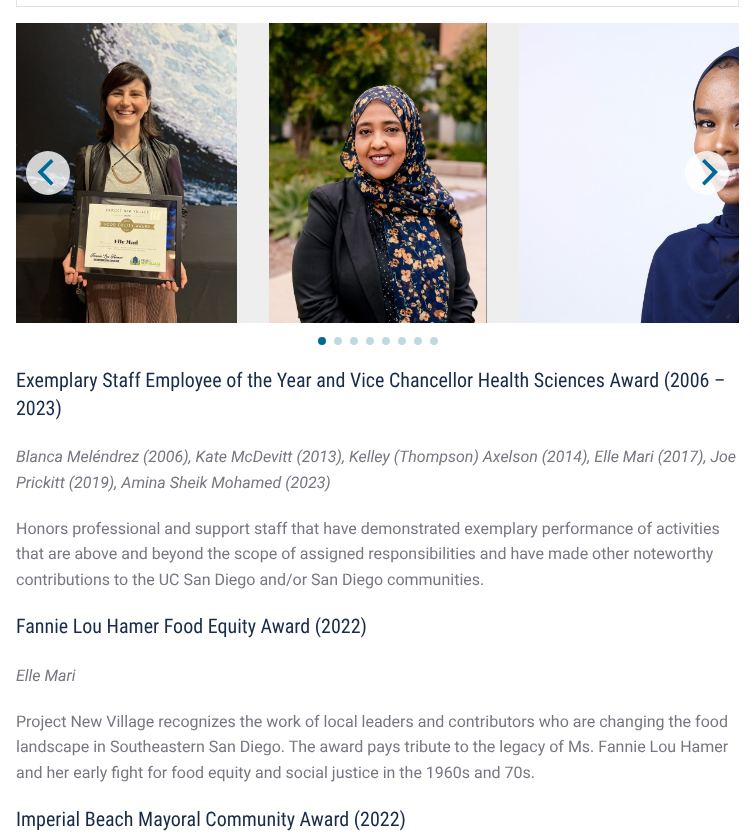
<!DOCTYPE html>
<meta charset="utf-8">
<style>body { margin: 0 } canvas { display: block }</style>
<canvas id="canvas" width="755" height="836"></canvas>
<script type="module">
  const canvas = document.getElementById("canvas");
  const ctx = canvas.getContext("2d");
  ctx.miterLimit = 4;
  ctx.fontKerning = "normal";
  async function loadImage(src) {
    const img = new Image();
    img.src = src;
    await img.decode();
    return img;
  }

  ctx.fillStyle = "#ffffff";
  ctx.fillRect(0, 0, 755, 836);
  ctx.strokeStyle = "#e3e3e5";
  ctx.strokeRect(16.5, -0.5, 722, 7);
  ctx.fillStyle = "#eeeeee";
  ctx.fillRect(237, 23, 282, 300);
  ctx.drawImage(await loadImage("img1.png"), 16, 23, 221, 300);
  ctx.drawImage(await loadImage("img2.png"), 269, 23, 218, 300);
  ctx.drawImage(await loadImage("img3.png"), 519, 23, 220, 300);
  ctx.fillStyle = "rgba(255, 255, 255, 0.8)";
  ctx.beginPath();
  ctx.arc(48, 173, 22, 0, Math.PI * 2);
  ctx.fill();
  ctx.fillStyle = "#006a96";
  ctx.beginPath();
  ctx.moveTo(37.5, 172);
  ctx.lineTo(51, 185.5);
  ctx.lineTo(53.5, 183);
  ctx.lineTo(43, 172);
  ctx.lineTo(53.5, 161.5);
  ctx.lineTo(51, 159);
  ctx.closePath();
  ctx.fill();
  ctx.fillStyle = "rgba(255, 255, 255, 0.8)";
  ctx.beginPath();
  ctx.arc(707, 173, 22, 0, Math.PI * 2);
  ctx.fill();
  ctx.fillStyle = "#006a96";
  ctx.beginPath();
  ctx.moveTo(718, 172);
  ctx.lineTo(704.5, 159);
  ctx.lineTo(702, 161.5);
  ctx.lineTo(712.5, 172);
  ctx.lineTo(702, 183);
  ctx.lineTo(704.5, 185.5);
  ctx.closePath();
  ctx.fill();
  ctx.beginPath();
  ctx.arc(322, 341, 4, 0, Math.PI * 2);
  ctx.fill();
  ctx.fillStyle = "#bfdae5";
  ctx.beginPath();
  ctx.arc(338, 341, 4, 0, Math.PI * 2);
  ctx.fill();
  ctx.beginPath();
  ctx.arc(354, 341, 4, 0, Math.PI * 2);
  ctx.fill();
  ctx.beginPath();
  ctx.arc(370, 341, 4, 0, Math.PI * 2);
  ctx.fill();
  ctx.beginPath();
  ctx.arc(386, 341, 4, 0, Math.PI * 2);
  ctx.fill();
  ctx.beginPath();
  ctx.arc(402, 341, 4, 0, Math.PI * 2);
  ctx.fill();
  ctx.beginPath();
  ctx.arc(418, 341, 4, 0, Math.PI * 2);
  ctx.fill();
  ctx.beginPath();
  ctx.arc(434, 341, 4, 0, Math.PI * 2);
  ctx.fill();
  ctx.font = "20px Roboto Condensed";
  ctx.fillStyle = "#182b49";
  ctx.fillText("Exemplary Staff Employee of the Year and Vice Chancellor Health Sciences Award (2006 –", 16, 387);
  ctx.fillText("2023)", 16, 415);
  ctx.font = "italic 16px Roboto";
  ctx.fillStyle = "#777783";
  ctx.fillText("Blanca Meléndrez (2006), Kate McDevitt (2013), Kelley (Thompson) Axelson (2014), Elle Mari (2017), Joe", 16, 462);
  ctx.fillText("Prickitt (2019), Amina Sheik Mohamed (2023)", 16, 488);
  ctx.font = "16px Roboto";
  ctx.fillText("Honors professional and support staff that have demonstrated exemplary performance of activities", 16, 534);
  ctx.fillText("that are above and beyond the scope of assigned responsibilities and have made other noteworthy", 16, 559);
  ctx.fillText("contributions to the UC San Diego and/or San Diego communities.", 16, 585);
  ctx.font = "20px Roboto Condensed";
  ctx.fillStyle = "#182b49";
  ctx.fillText("Fannie Lou Hamer Food Equity Award (2022)", 16, 633);
  ctx.font = "italic 16px Roboto";
  ctx.fillStyle = "#777783";
  ctx.fillText("Elle Mari", 16, 681);
  ctx.font = "16px Roboto";
  ctx.fillText("Project New Village recognizes the work of local leaders and contributors who are changing the food", 16, 727);
  ctx.fillText("landscape in Southeastern San Diego. The award pays tribute to the legacy of Ms. Fannie Lou Hamer", 16, 752);
  ctx.fillText("and her early fight for food equity and social justice in the 1960s and 70s.", 16, 778);
  ctx.font = "20px Roboto Condensed";
  ctx.fillStyle = "#182b49";
  ctx.fillText("Imperial Beach Mayoral Community Award (2022)", 16, 826);
</script>
